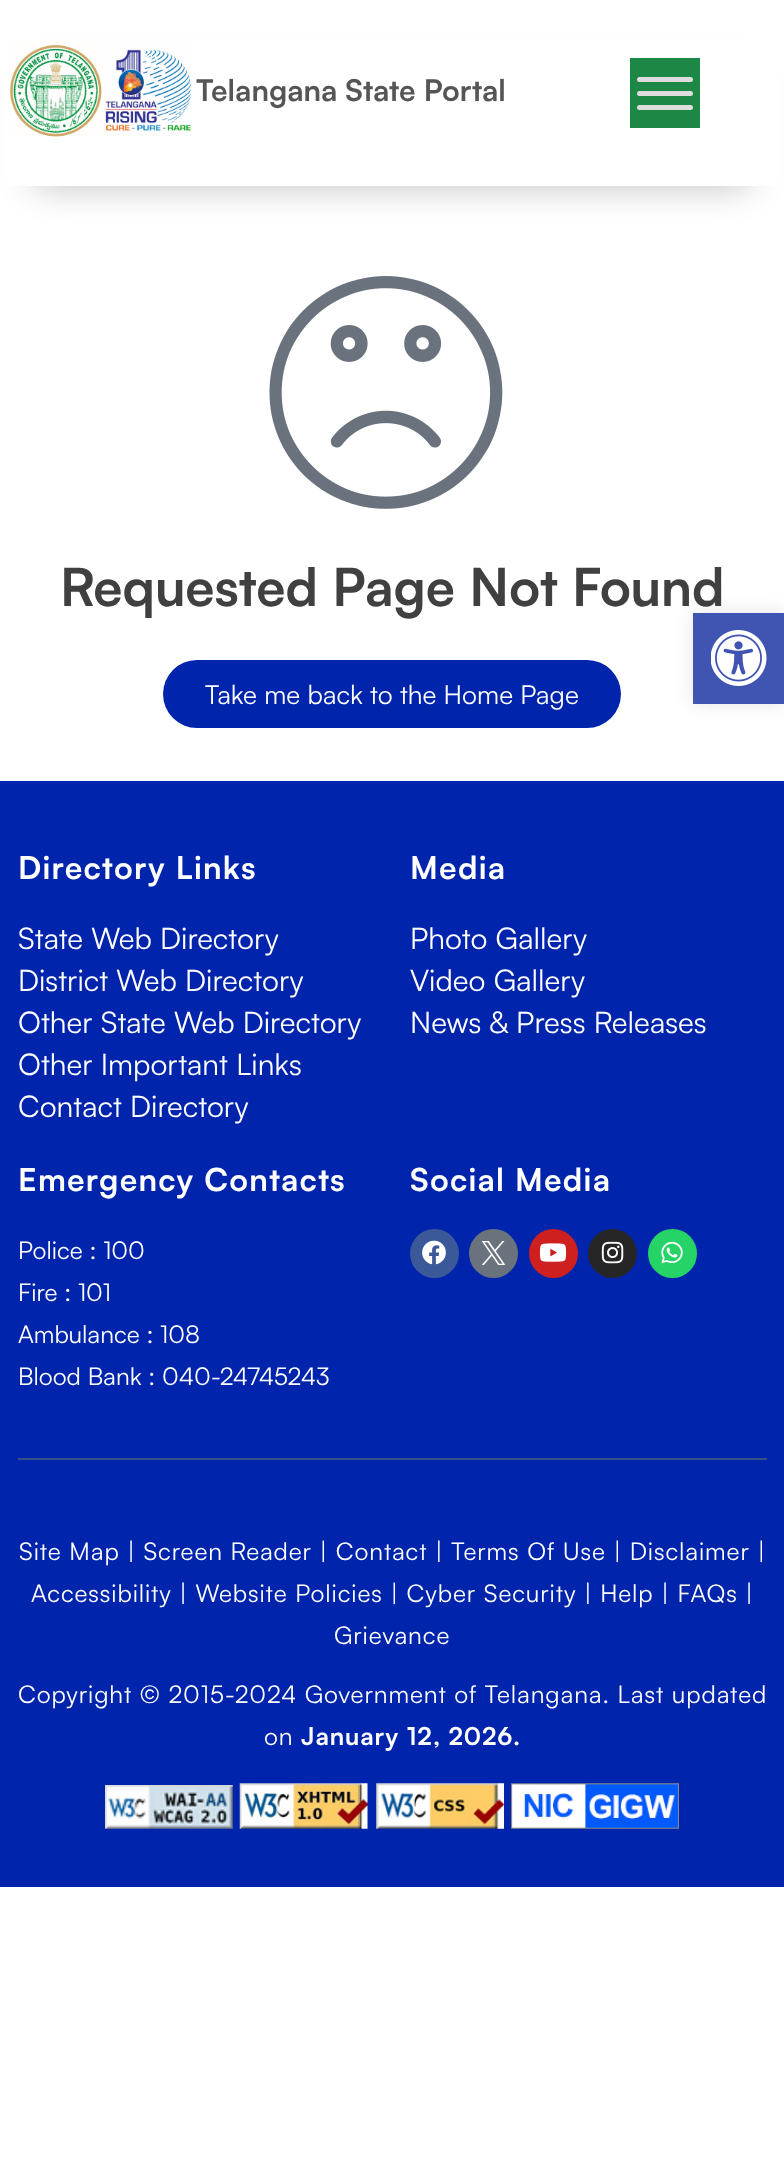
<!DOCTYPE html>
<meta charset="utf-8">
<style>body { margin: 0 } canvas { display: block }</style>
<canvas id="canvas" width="784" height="2174"></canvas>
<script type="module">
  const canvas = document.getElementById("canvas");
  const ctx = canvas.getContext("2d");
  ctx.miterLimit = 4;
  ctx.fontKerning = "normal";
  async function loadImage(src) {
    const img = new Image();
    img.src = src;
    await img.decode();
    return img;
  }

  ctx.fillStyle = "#ffffff";
  ctx.fillRect(0, 0, 784, 2174);
  ctx.fillStyle = "rgba(0, 0, 0, 0.25)";
  ctx.filter = "blur(17.5px)";
  ctx.beginPath();
  ctx.rect(35, 70, 714, 116);
  ctx.fill();
  ctx.filter = "none";
  ctx.fillStyle = "#ffffff";
  ctx.fillRect(4, 39, 776, 147);
  ctx.drawImage(await loadImage("img1.png"), 9, 44, 182, 93);
  ctx.font = "bold 29.75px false";
  ctx.fillStyle = "#555555";
  ctx.fillText("Telangana State Portal", 196, 101);
  ctx.fillStyle = "#1d8745";
  ctx.fillRect(630, 58, 70, 70);
  ctx.fillStyle = "#dddddd";
  ctx.beginPath();
  ctx.roundRect(637, 77, 56, 5, 2.5);
  ctx.fill();
  ctx.beginPath();
  ctx.roundRect(637, 91, 56, 5, 2.5);
  ctx.fill();
  ctx.beginPath();
  ctx.roundRect(637, 105, 56, 5, 2.5);
  ctx.fill();
  ctx.drawImage(await loadImage("img2.png"), 269, 276, 234, 233);
  ctx.font = "bold 52.5px false";
  ctx.fillStyle = "#404040";
  ctx.fillText("Requested Page Not Found", 60, 606);
  ctx.fillStyle = "#0025ac";
  ctx.beginPath();
  ctx.roundRect(163, 660, 458, 68, 34);
  ctx.fill();
  ctx.font = "26.25px false";
  ctx.fillStyle = "#ffffff";
  ctx.fillText("Take me back to the Home Page", 205, 704);
  ctx.fillStyle = "rgba(0, 0, 0, 0.1)";
  ctx.filter = "blur(9px)";
  ctx.beginPath();
  ctx.rect(693, 613, 91, 91);
  ctx.fill();
  ctx.filter = "none";
  ctx.fillStyle = "#4054b2";
  ctx.fillRect(693, 613, 91, 91);
  ctx.drawImage(await loadImage("img3.png"), 711, 630, 56, 56);
  ctx.fillStyle = "#0025ac";
  ctx.fillRect(0, 781, 784, 1106);
  ctx.letterSpacing = "1.25px";
  ctx.font = "bold 31.5px false";
  ctx.fillStyle = "#ffffff";
  ctx.fillText("Directory Links", 18, 879);
  ctx.letterSpacing = "0px";
  ctx.font = "29.75px false";
  ctx.fillText("State Web Directory", 18, 949);
  ctx.fillText("District Web Directory", 18, 991);
  ctx.fillText("Other State Web Directory", 18, 1033);
  ctx.fillText("Other Important Links", 18, 1075);
  ctx.fillText("Contact Directory", 18, 1117);
  ctx.letterSpacing = "1.25px";
  ctx.font = "bold 31.5px false";
  ctx.fillText("Media", 410, 879);
  ctx.letterSpacing = "0px";
  ctx.font = "29.75px false";
  ctx.fillText("Photo Gallery", 410, 949);
  ctx.fillText("Video Gallery", 410, 991);
  ctx.fillText("News & Press Releases", 410, 1033);
  ctx.letterSpacing = "1.25px";
  ctx.font = "bold 31.5px false";
  ctx.fillText("Emergency Contacts", 18, 1191);
  ctx.letterSpacing = "0px";
  ctx.font = "24.5px false";
  ctx.fillText("Police : 100", 18, 1259);
  ctx.fillText("Fire : 101", 18, 1301);
  ctx.fillText("Ambulance : 108", 18, 1343);
  ctx.fillText("Blood Bank : 040-24745243", 18, 1385);
  ctx.letterSpacing = "1.25px";
  ctx.font = "bold 31.5px false";
  ctx.fillText("Social Media", 410, 1191);
  ctx.fillStyle = "#3b5998";
  ctx.beginPath();
  ctx.arc(434.5, 1253.5, 24.5, 0, Math.PI * 2);
  ctx.fill();
  ctx.drawImage(await loadImage("img4.png"), 422, 1240, 24, 25);
  ctx.fillStyle = "#69727d";
  ctx.beginPath();
  ctx.arc(493.5, 1253.5, 24.5, 0, Math.PI * 2);
  ctx.fill();
  ctx.drawImage(await loadImage("img5.png"), 481, 1241, 25, 24);
  ctx.fillStyle = "#cd201f";
  ctx.beginPath();
  ctx.arc(553.5, 1253.5, 24.5, 0, Math.PI * 2);
  ctx.fill();
  ctx.drawImage(await loadImage("img6.png"), 539, 1243, 28, 19);
  ctx.fillStyle = "#262626";
  ctx.beginPath();
  ctx.arc(612.5, 1253.5, 24.5, 0, Math.PI * 2);
  ctx.fill();
  ctx.drawImage(await loadImage("img7.png"), 601, 1241, 23, 23);
  ctx.fillStyle = "#25d366";
  ctx.beginPath();
  ctx.arc(672.5, 1253.5, 24.5, 0, Math.PI * 2);
  ctx.fill();
  ctx.drawImage(await loadImage("img8.png"), 661, 1241, 22, 23);
  ctx.fillStyle = "#335386";
  ctx.fillRect(18, 1458, 749, 2);
  ctx.letterSpacing = "0.88px";
  ctx.font = "24.5px false";
  ctx.fillStyle = "#ffffff";
  ctx.fillText("Site Map | Screen Reader | Contact | Terms Of Use | Disclaimer |", 19, 1560);
  ctx.fillText("Accessibility | Website Policies | Cyber Security | Help | FAQs |", 31, 1602);
  ctx.fillText("Grievance", 334, 1644);
  ctx.fillText("Copyright © 2015-2024 Government of Telangana. Last updated", 18, 1703);
  ctx.fillText("on", 264, 1745);
  ctx.font = "bold 24.5px false";
  ctx.fillText("January 12, 2026.", 301, 1745);
  ctx.drawImage(await loadImage("img9.png"), 105, 1785, 128, 44);
  ctx.drawImage(await loadImage("img10.png"), 239, 1783, 129, 46);
  ctx.drawImage(await loadImage("img11.png"), 376, 1783, 128, 46);
  ctx.drawImage(await loadImage("img12.png"), 511, 1783, 168, 46);
</script>
